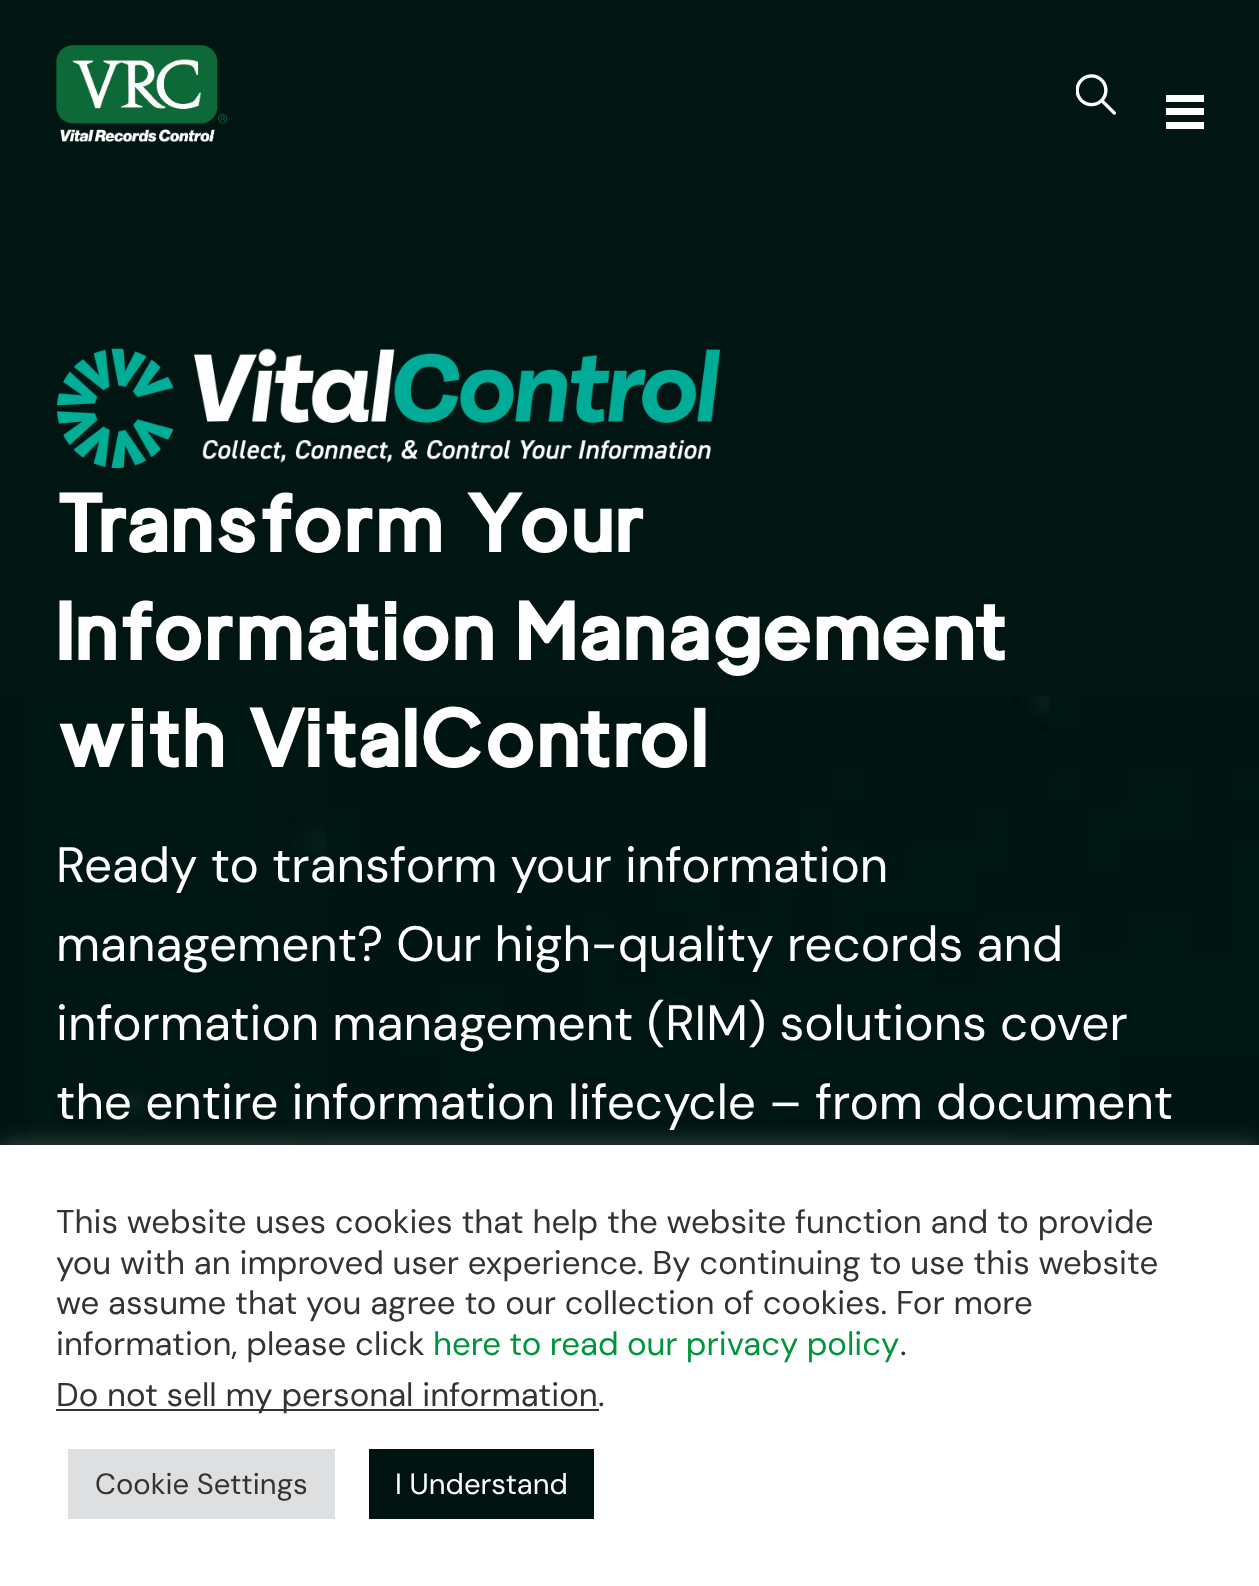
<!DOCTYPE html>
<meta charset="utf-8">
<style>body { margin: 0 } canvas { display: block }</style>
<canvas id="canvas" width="1259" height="1586"></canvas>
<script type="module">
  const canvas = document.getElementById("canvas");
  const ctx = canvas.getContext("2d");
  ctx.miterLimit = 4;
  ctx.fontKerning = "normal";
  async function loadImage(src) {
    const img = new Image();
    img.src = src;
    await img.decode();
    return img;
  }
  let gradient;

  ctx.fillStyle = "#011612";
  ctx.fillRect(0, 0, 1259, 1586);
  ctx.drawImage(await loadImage("img1.png"), 56, 45, 172, 97);
  ctx.drawImage(await loadImage("img2.png"), 1076, 74, 40, 41);
  ctx.fillStyle = "#ffffff";
  ctx.fillRect(1166, 95, 38, 7);
  ctx.fillRect(1166, 108, 38, 7);
  ctx.fillRect(1166, 122, 38, 7);
  ctx.drawImage(await loadImage("img3.png"), 57, 348, 664, 120);
  ctx.font = "bold 81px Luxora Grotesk";
  ctx.fillText("Transform Your", 56, 552);
  ctx.fillText("Information Management", 56, 660);
  ctx.drawImage(await loadImage("img4.png"), 0, 695, 1259, 450);
  gradient = ctx.createLinearGradient(0, 784, 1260, 784);
  gradient.addColorStop(0, "rgba(0, 23, 19, 0.84)");
  gradient.addColorStop(1, "rgba(0, 23, 19, 0)");
  ctx.fillStyle = gradient;
  ctx.fillRect(28, 695, 299, 450);
  ctx.fillStyle = "#ffffff";
  ctx.fillText("with VitalControl", 56, 767);
  ctx.font = "49.5px DM Sans";
  ctx.fillText("Ready to transform your information", 56, 882);
  ctx.fillText("management? Our high-quality records and", 56, 961);
  ctx.fillText("information management (RIM) solutions cover", 56, 1040);
  ctx.fillText("the entire information lifecycle – from document", 56, 1119);
  ctx.fillStyle = "rgba(172, 171, 171, 0.3)";
  ctx.filter = "blur(11px)";
  ctx.beginPath();
  ctx.rect(0, 1143, 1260, 441);
  ctx.fill();
  ctx.filter = "none";
  ctx.fillStyle = "#ffffff";
  ctx.fillRect(0, 1145, 1259, 441);
  ctx.font = "33px DM Sans";
  ctx.fillStyle = "#333333";
  ctx.fillText("This website uses cookies that help the website function and to provide", 56, 1233);
  ctx.fillText("you with an improved user experience. By continuing to use this website", 56, 1274);
  ctx.fillText("we assume that you agree to our collection of cookies. For more", 56, 1314);
  ctx.fillText("information, please click", 56, 1355);
  ctx.wordSpacing = "-0.5px";
  ctx.fillStyle = "#00953b";
  ctx.fillText("here to read our privacy policy", 433, 1355);
  ctx.wordSpacing = "0px";
  ctx.fillStyle = "#333333";
  ctx.fillText(".", 900, 1355);
  ctx.fillRect(56, 1409, 543, 2);
  ctx.fillText("Do not sell my personal information", 56, 1406);
  ctx.fillText(".", 598, 1406);
  ctx.fillStyle = "#dedfe0";
  ctx.fillRect(68, 1449, 267, 70);
  ctx.font = "29.25px DM Sans";
  ctx.fillStyle = "#333333";
  ctx.fillText("Cookie Settings", 95, 1494);
  ctx.fillStyle = "#001311";
  ctx.fillRect(369, 1449, 225, 70);
  ctx.fillStyle = "#ffffff";
  ctx.fillText("I Understand", 395, 1494);
</script>
